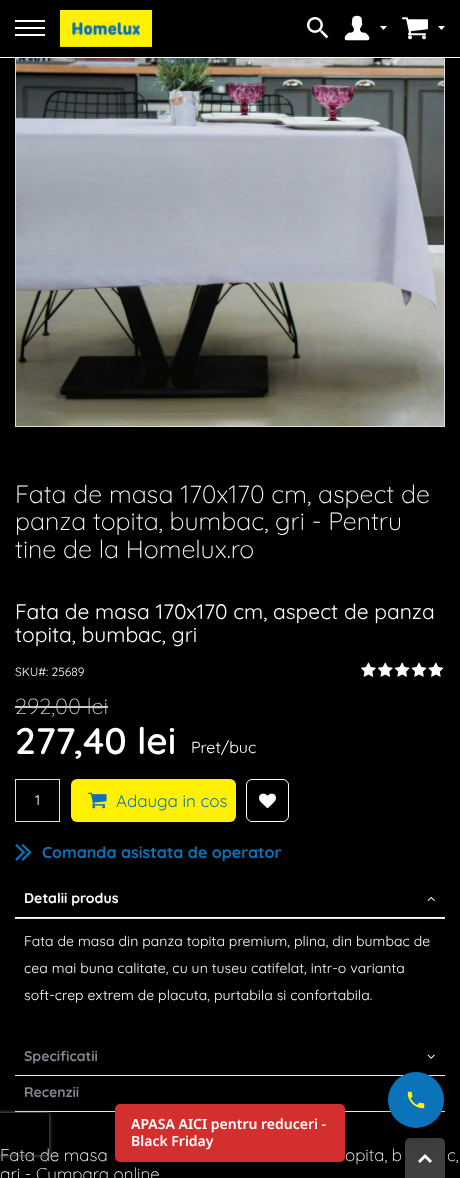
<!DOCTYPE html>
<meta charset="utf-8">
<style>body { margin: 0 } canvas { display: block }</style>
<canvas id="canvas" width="460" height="1178"></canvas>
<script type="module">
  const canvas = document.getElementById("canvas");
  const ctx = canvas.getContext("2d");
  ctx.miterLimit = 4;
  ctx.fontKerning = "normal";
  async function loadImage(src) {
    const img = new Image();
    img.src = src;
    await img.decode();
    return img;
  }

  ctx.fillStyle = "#000000";
  ctx.fillRect(0, 0, 460, 1178);
  ctx.strokeStyle = "#dddddd";
  ctx.strokeRect(15.5, -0.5, 429, 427);
  ctx.fillRect(15, 0, 430, 57);
  ctx.fillStyle = "#ffffff";
  ctx.fillRect(0, 57, 460, 1);
  ctx.fillRect(15, 20, 30, 2);
  ctx.fillRect(15, 27, 30, 2);
  ctx.fillRect(15, 34, 30, 2);
  ctx.drawImage(await loadImage("img1.png"), 60, 10, 92, 37);
  ctx.drawImage(await loadImage("img2.png"), 307, 17, 22, 22);
  ctx.drawImage(await loadImage("img3.png"), 344, 15, 26, 26);
  ctx.beginPath();
  ctx.moveTo(383.5, 30);
  ctx.lineTo(380, 26);
  ctx.lineTo(387, 26);
  ctx.closePath();
  ctx.fill();
  ctx.drawImage(await loadImage("img4.png"), 402, 17, 26, 23);
  ctx.beginPath();
  ctx.moveTo(441.5, 30);
  ctx.lineTo(438, 26);
  ctx.lineTo(445, 26);
  ctx.closePath();
  ctx.fill();
  ctx.drawImage(await loadImage("img5.png"), 16, 58, 428, 368);
  ctx.font = "300 25px Quicksand";
  ctx.fillText("Fata de masa 170x170 cm, aspect de", 15, 503);
  ctx.fillText("panza topita, bumbac, gri - Pentru", 15, 530);
  ctx.fillText("tine de la Homelux.ro", 15, 558);
  ctx.font = "21px Quicksand";
  ctx.fillText("Fata de masa 170x170 cm, aspect de panza", 15, 619);
  ctx.fillText("topita, bumbac, gri", 15, 642);
  ctx.font = "12px Quicksand";
  ctx.fillText("SKU#: 25689", 15, 676);
  ctx.drawImage(await loadImage("img6.png"), 361, 662, 83, 15);
  ctx.font = "300 22px Quicksand";
  ctx.fillStyle = "#c9c9c9";
  ctx.fillText("292,00 lei", 15, 714);
  ctx.fillRect(15, 706, 93, 2);
  ctx.font = "600 37px Quicksand";
  ctx.fillStyle = "#ffffff";
  ctx.fillText("277,40 lei", 15, 754);
  ctx.font = "16px Quicksand";
  ctx.fillText("Pret/buc", 191, 753);
  ctx.strokeStyle = "#dae2e6";
  ctx.strokeRect(15.5, 779.5, 44, 42);
  ctx.font = "14px Quicksand";
  ctx.fillText("1", 35, 805);
  ctx.fillStyle = "#fff100";
  ctx.beginPath();
  ctx.roundRect(71, 779, 165, 43, 6);
  ctx.fill();
  ctx.drawImage(await loadImage("img7.png"), 88, 792, 19, 17);
  ctx.font = "17px Quicksand";
  ctx.fillStyle = "#0b73ba";
  ctx.fillText("Adauga in cos", 116, 807);
  ctx.beginPath();
  ctx.roundRect(246.5, 779.5, 42, 42, 5.5);
  ctx.strokeStyle = "#ffffff";
  ctx.stroke();
  ctx.drawImage(await loadImage("img8.png"), 259, 793, 17, 16);
  ctx.drawImage(await loadImage("img9.png"), 15, 844, 17, 17);
  ctx.font = "bold 16px Quicksand";
  ctx.fillText("Comanda asistata de operator", 42, 858);
  ctx.fillStyle = "#ffffff";
  ctx.fillRect(15, 917, 430, 1);
  ctx.font = "bold 14px Quicksand";
  ctx.fillText("Detalii produs", 24, 903);
  ctx.drawImage(await loadImage("img10.png"), 427, 896, 8, 5);
  ctx.fillStyle = "#dae2e6";
  ctx.fillRect(15, 918, 430, 1);
  ctx.letterSpacing = "0.07px";
  ctx.font = "14px Quicksand";
  ctx.fillStyle = "#ffffff";
  ctx.fillText("Fata de masa din panza topita premium, plina, din bumbac de", 24, 946);
  ctx.fillText("cea mai buna calitate, cu un tuseu catifelat, intr-o varianta", 24, 973);
  ctx.fillText("soft-crep extrem de placuta, purtabila si confortabila.", 24, 1000);
  ctx.fillStyle = "#eeeeee";
  ctx.fillRect(15, 1075, 430, 1);
  ctx.letterSpacing = "0px";
  ctx.font = "bold 14px Quicksand";
  ctx.fillStyle = "#818692";
  ctx.fillText("Specificatii", 24, 1061);
  ctx.drawImage(await loadImage("img11.png"), 427, 1054, 8, 5);
  ctx.fillStyle = "#eeeeee";
  ctx.fillRect(15, 1111, 430, 1);
  ctx.fillStyle = "#818692";
  ctx.fillText("Recenzii", 24, 1097);
  ctx.fillStyle = "rgba(0, 0, 0, 0.25)";
  ctx.filter = "blur(9px)";
  ctx.beginPath();
  ctx.roundRect(115, 1110, 230, 58, 5);
  ctx.fill();
  ctx.filter = "none";
  ctx.fillStyle = "#d32f2f";
  ctx.beginPath();
  ctx.roundRect(115, 1104, 230, 58, 5);
  ctx.fill();
  ctx.font = "600 14px Noto Sans";
  ctx.fillStyle = "#ffffff";
  ctx.fillText("APASA AICI pentru reduceri -", 131, 1129);
  ctx.fillText("Black Friday", 131, 1146);
  ctx.fillStyle = "#404040";
  ctx.beginPath();
  ctx.roundRect(405, 1138, 40, 40, [5, 5, 0, 0]);
  ctx.fill();
  ctx.drawImage(await loadImage("img12.png"), 418, 1154, 14, 9);
  ctx.font = "300 17px Quicksand";
  ctx.fillStyle = "#ffffff";
  ctx.fillText("Fata de masa", 0, 1161);
  ctx.fillText("opita, b", 345, 1161);
  ctx.fillText("c,", 447, 1161);
  ctx.fillText("gri - Cumpara online", 0, 1180);
  ctx.save();
  ctx.beginPath();
  ctx.moveTo(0, 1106);
  ctx.lineTo(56, 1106);
  ctx.lineTo(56, 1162);
  ctx.lineTo(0, 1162);
  ctx.closePath();
  ctx.moveTo(-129.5, 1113);
  ctx.lineTo(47.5, 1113);
  ctx.bezierCurveTo(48.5, 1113, 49, 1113.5, 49, 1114.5);
  ctx.lineTo(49, 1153.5);
  ctx.bezierCurveTo(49, 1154.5, 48.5, 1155, 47.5, 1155);
  ctx.lineTo(-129.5, 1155);
  ctx.bezierCurveTo(-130.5, 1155, -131, 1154.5, -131, 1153.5);
  ctx.lineTo(-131, 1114.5);
  ctx.bezierCurveTo(-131, 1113.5, -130.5, 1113, -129.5, 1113);
  ctx.closePath();
  ctx.clip("evenodd");
  ctx.fillStyle = "#808080";
  ctx.filter = "blur(2px)";
  ctx.beginPath();
  ctx.roundRect(-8, 1113, 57, 42, 1.5);
  ctx.fill();
  ctx.filter = "none";
  ctx.restore();
  ctx.fillStyle = "rgba(0, 0, 0, 0.25)";
  ctx.filter = "blur(10px)";
  ctx.beginPath();
  ctx.roundRect(388, 1082, 56, 56, 28);
  ctx.fill();
  ctx.filter = "none";
  ctx.fillStyle = "#0b73ba";
  ctx.beginPath();
  ctx.arc(416, 1100, 28, 0, Math.PI * 2);
  ctx.fill();
  ctx.drawImage(await loadImage("img13.png"), 407, 1091, 18, 18);
</script>
